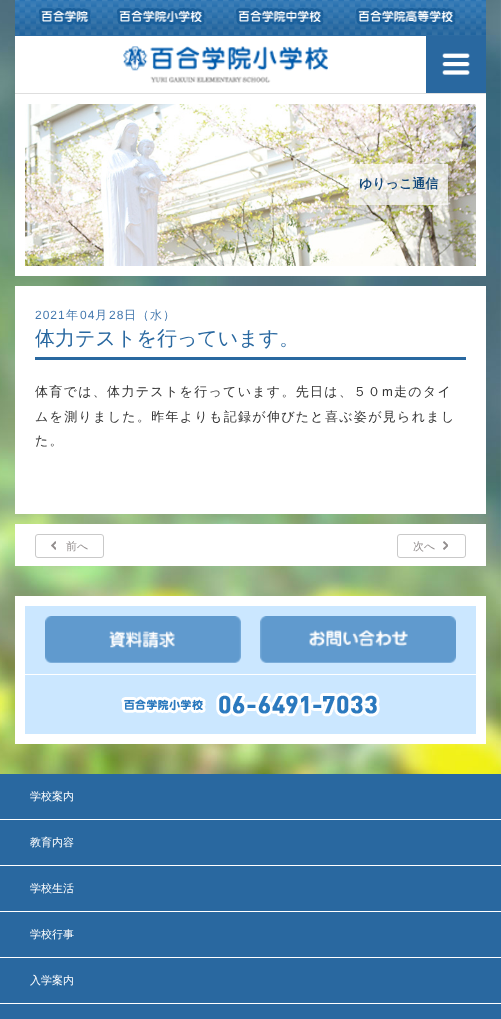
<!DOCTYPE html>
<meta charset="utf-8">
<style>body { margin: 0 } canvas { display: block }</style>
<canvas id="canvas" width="501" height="1019"></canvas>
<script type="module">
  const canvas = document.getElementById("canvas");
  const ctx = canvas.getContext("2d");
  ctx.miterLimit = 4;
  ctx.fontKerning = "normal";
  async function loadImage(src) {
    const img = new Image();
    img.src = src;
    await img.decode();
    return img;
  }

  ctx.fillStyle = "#ffffff";
  ctx.fillRect(0, 0, 501, 1019);
  ctx.drawImage(await loadImage("img1.png"), 0, 0, 501, 774);
  ctx.drawImage(await loadImage("img2.png"), 15, 0, 471, 36);
  ctx.drawImage(await loadImage("img3.png"), 38, 8, 53, 17);
  ctx.drawImage(await loadImage("img4.png"), 116, 7, 89, 18);
  ctx.drawImage(await loadImage("img5.png"), 235, 7, 89, 18);
  ctx.drawImage(await loadImage("img6.png"), 355, 7, 101, 18);
  ctx.fillRect(15, 36, 411, 57);
  ctx.fillStyle = "#dedede";
  ctx.fillRect(15, 93, 471, 1);
  ctx.drawImage(await loadImage("img7.png"), 123, 46, 205, 37);
  ctx.fillStyle = "#2968a0";
  ctx.fillRect(426, 36, 60, 57);
  ctx.drawImage(await loadImage("img8.png"), 442, 53, 28, 22);
  ctx.fillStyle = "#ffffff";
  ctx.fillRect(15, 94, 471, 182);
  ctx.drawImage(await loadImage("img9.png"), 25, 104, 451, 162);
  ctx.fillStyle = "rgba(255, 255, 255, 0.7)";
  ctx.fillRect(349, 164, 99, 41);
  ctx.font = "bold 13px WenQuanYi Zen Hei";
  ctx.fillStyle = "#11487a";
  ctx.fillText("ゆりっこ通信", 359, 188);
  ctx.fillStyle = "#ffffff";
  ctx.fillRect(15, 286, 471, 228);
  ctx.letterSpacing = "1px";
  ctx.font = "12px Liberation Sans";
  ctx.fillStyle = "#4378ae";
  ctx.fillText("2021", 35, 319);
  ctx.font = "500 12px WenQuanYi Zen Hei";
  ctx.fillText("年", 66, 319);
  ctx.font = "12px Liberation Sans";
  ctx.fillText("04", 80, 319);
  ctx.font = "500 12px WenQuanYi Zen Hei";
  ctx.fillText("月", 95, 319);
  ctx.font = "12px Liberation Sans";
  ctx.fillText("28", 109, 319);
  ctx.font = "500 12px WenQuanYi Zen Hei";
  ctx.fillText("日（水）", 124, 319);
  ctx.fillStyle = "#2968a0";
  ctx.fillRect(35, 357, 431, 3);
  ctx.letterSpacing = "0px";
  ctx.font = "500 20px WenQuanYi Zen Hei";
  ctx.fillText("体力テストを行っています。", 35, 345);
  ctx.letterSpacing = "1.3px";
  ctx.font = "500 13px WenQuanYi Zen Hei";
  ctx.fillStyle = "#333333";
  ctx.fillText("体育では、体力テストを行っています。先日は、５０", 35, 396);
  ctx.font = "13px Liberation Sans";
  ctx.fillText("m", 382, 396);
  ctx.font = "500 13px WenQuanYi Zen Hei";
  ctx.fillText("走のタイ", 394, 396);
  ctx.fillText("ムを測りました。昨年よりも記録が伸びたと喜ぶ姿が見られまし", 35, 421);
  ctx.fillText("た。", 35, 445);
  ctx.fillStyle = "#ffffff";
  ctx.fillRect(15, 524, 471, 42);
  ctx.drawImage(await loadImage("img10.png"), 51, 541, 5, 9);
  ctx.beginPath();
  ctx.roundRect(35.5, 534.5, 68, 23, 2.5);
  ctx.strokeStyle = "#c9c9c9";
  ctx.stroke();
  ctx.letterSpacing = "0px";
  ctx.font = "500 11px WenQuanYi Zen Hei";
  ctx.fillStyle = "#948f8f";
  ctx.fillText("前へ", 66, 550);
  ctx.drawImage(await loadImage("img11.png"), 443, 541, 5, 9);
  ctx.beginPath();
  ctx.roundRect(397.5, 534.5, 68, 23, 2.5);
  ctx.stroke();
  ctx.fillText("次へ", 413, 550);
  ctx.fillStyle = "#ffffff";
  ctx.fillRect(15, 596, 471, 148);
  ctx.fillStyle = "#cbe7ff";
  ctx.fillRect(25, 606, 451, 128);
  ctx.fillStyle = "#ffffff";
  ctx.fillRect(25, 674, 451, 1);
  ctx.drawImage(await loadImage("img12.png"), 45, 616, 196, 47);
  ctx.drawImage(await loadImage("img13.png"), 260, 616, 196, 47);
  ctx.drawImage(await loadImage("img14.png"), 121, 692, 259, 25);
  ctx.fillStyle = "#2968a0";
  ctx.fillRect(0, 774, 501, 45);
  ctx.fillStyle = "#ffffff";
  ctx.fillText("学校案内", 30, 800);
  ctx.fillStyle = "#2968a0";
  ctx.fillRect(0, 820, 501, 45);
  ctx.fillStyle = "#ffffff";
  ctx.fillText("教育内容", 30, 846);
  ctx.fillStyle = "#2968a0";
  ctx.fillRect(0, 866, 501, 45);
  ctx.fillStyle = "#ffffff";
  ctx.fillText("学校生活", 30, 892);
  ctx.fillStyle = "#2968a0";
  ctx.fillRect(0, 912, 501, 45);
  ctx.fillStyle = "#ffffff";
  ctx.fillText("学校行事", 30, 938);
  ctx.fillStyle = "#2968a0";
  ctx.fillRect(0, 958, 501, 45);
  ctx.fillStyle = "#ffffff";
  ctx.fillText("入学案内", 30, 984);
  ctx.fillStyle = "#2968a0";
  ctx.fillRect(0, 1004, 501, 15);
</script>
